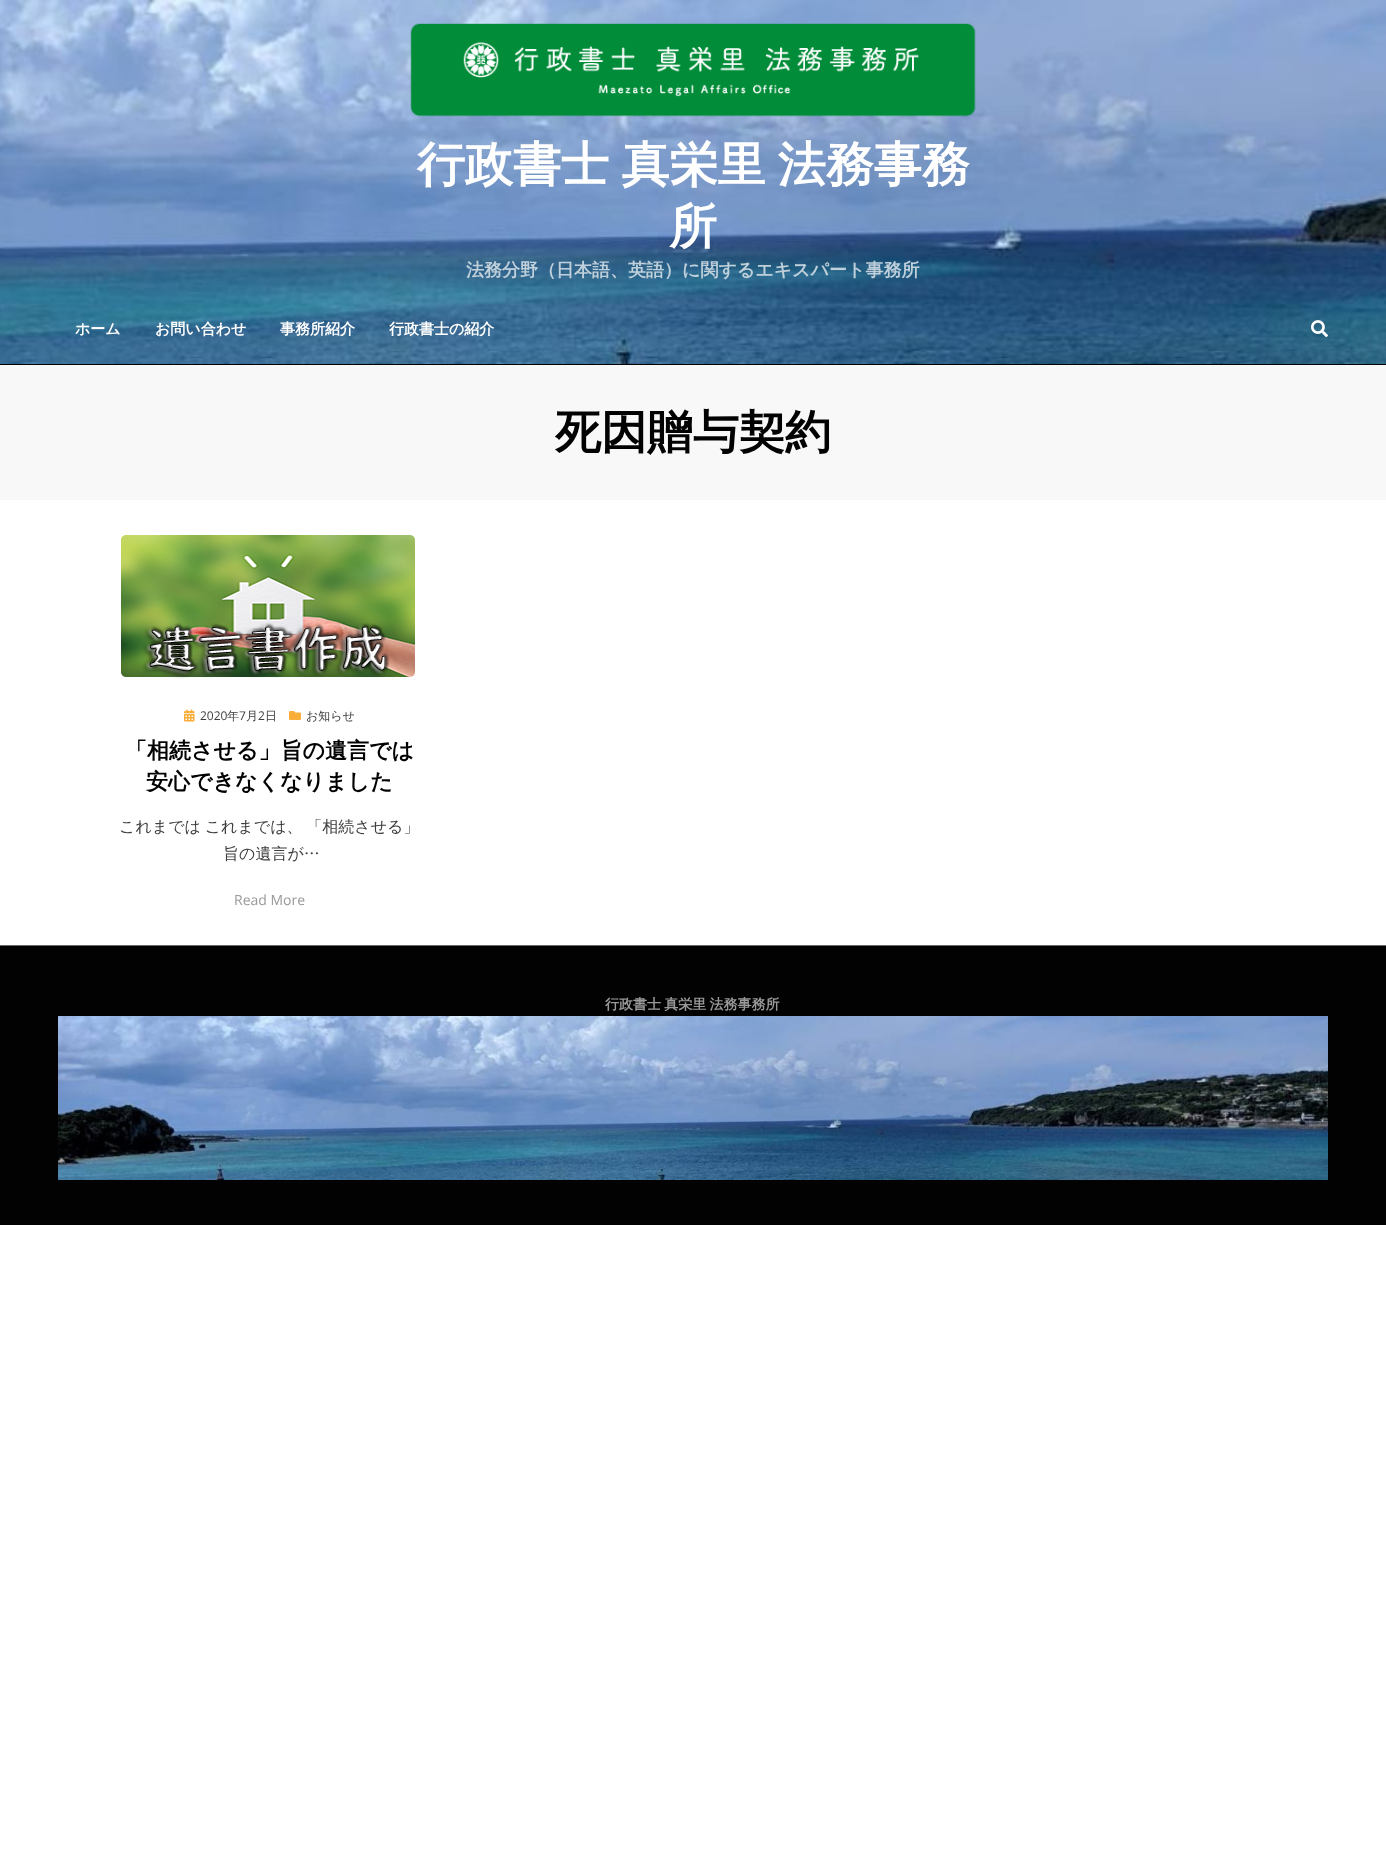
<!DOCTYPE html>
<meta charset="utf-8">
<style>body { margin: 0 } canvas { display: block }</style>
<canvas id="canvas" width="1386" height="1866"></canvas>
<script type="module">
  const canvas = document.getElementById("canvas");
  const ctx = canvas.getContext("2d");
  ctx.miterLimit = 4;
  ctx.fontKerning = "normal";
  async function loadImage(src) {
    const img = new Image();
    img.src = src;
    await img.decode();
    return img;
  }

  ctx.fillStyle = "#ffffff";
  ctx.fillRect(0, 0, 1386, 1866);
  ctx.fillStyle = "#020202";
  ctx.fillRect(0, 364, 1386, 1);
  ctx.drawImage(await loadImage("img1.png"), 0, 0, 1386, 364);
  ctx.drawImage(await loadImage("img2.png"), 410, 23, 566, 94);
  ctx.wordSpacing = "-2px";
  ctx.font = "bold 48px WenQuanYi Zen Hei";
  ctx.fillStyle = "#ffffff";
  ctx.fillText("行政書士 真栄里 法務事務", 417, 181);
  ctx.wordSpacing = "0px";
  ctx.fillText("所", 669, 243);
  ctx.font = "bold 18px WenQuanYi Zen Hei";
  ctx.fillStyle = "#bfd0db";
  ctx.fillText("法務分野（日本語、英語）に関するエキスパート事務所", 466, 276);
  ctx.font = "bold 15px WenQuanYi Zen Hei";
  ctx.fillStyle = "#ffffff";
  ctx.fillText("ホーム", 75, 334);
  ctx.fillText("お問い合わせ", 155, 334);
  ctx.fillText("事務所紹介", 280, 334);
  ctx.fillText("行政書士の紹介", 389, 334);
  ctx.drawImage(await loadImage("img3.png"), 1311, 320, 17, 18);
  ctx.fillStyle = "#f8f8f8";
  ctx.fillRect(0, 365, 1386, 135);
  ctx.font = "bold 46px WenQuanYi Zen Hei";
  ctx.fillStyle = "#020202";
  ctx.fillText("死因贈与契約", 555, 448);
  ctx.drawImage(await loadImage("img4.png"), 121, 535, 294, 144);
  ctx.drawImage(await loadImage("img5.png"), 184, 709, 11, 13);
  ctx.font = "12px Open Sans";
  ctx.fillStyle = "#3d3d3d";
  ctx.fillText("2020", 200, 720);
  ctx.font = "500 12px WenQuanYi Zen Hei";
  ctx.fillText("年", 227, 720);
  ctx.font = "12px Open Sans";
  ctx.fillText("7", 239, 720);
  ctx.font = "500 12px WenQuanYi Zen Hei";
  ctx.fillText("月", 246, 720);
  ctx.font = "12px Open Sans";
  ctx.fillText("2", 258, 720);
  ctx.font = "500 12px WenQuanYi Zen Hei";
  ctx.fillText("日", 265, 720);
  ctx.drawImage(await loadImage("img6.png"), 289, 711, 12, 9);
  ctx.fillText("お知らせ", 306, 720);
  ctx.font = "bold 22px WenQuanYi Zen Hei";
  ctx.fillStyle = "#020202";
  ctx.fillText("「相続させる」旨の遺言では", 125, 758);
  ctx.fillText("安心できなくなりました", 146, 789);
  ctx.wordSpacing = "-1px";
  ctx.font = "500 16px WenQuanYi Zen Hei";
  ctx.fillStyle = "#3d3d3d";
  ctx.fillText("これまでは これまでは、 「相続させる」", 119, 832);
  ctx.wordSpacing = "0px";
  ctx.fillText("旨の遺言が…", 223, 859);
  ctx.font = "14px Open Sans";
  ctx.fillStyle = "#999999";
  ctx.fillText("Read More", 234, 905);
  ctx.fillStyle = "#020202";
  ctx.fillRect(0, 946, 1386, 279);
  ctx.fillStyle = "#666666";
  ctx.fillRect(0, 945, 1386, 1);
  ctx.wordSpacing = "-1px";
  ctx.font = "bold 14px WenQuanYi Zen Hei";
  ctx.fillStyle = "#999999";
  ctx.fillText("行政書士 真栄里 法務事務所", 605, 1009);
  ctx.drawImage(await loadImage("img7.png"), 58, 1016, 1270, 164);
</script>
